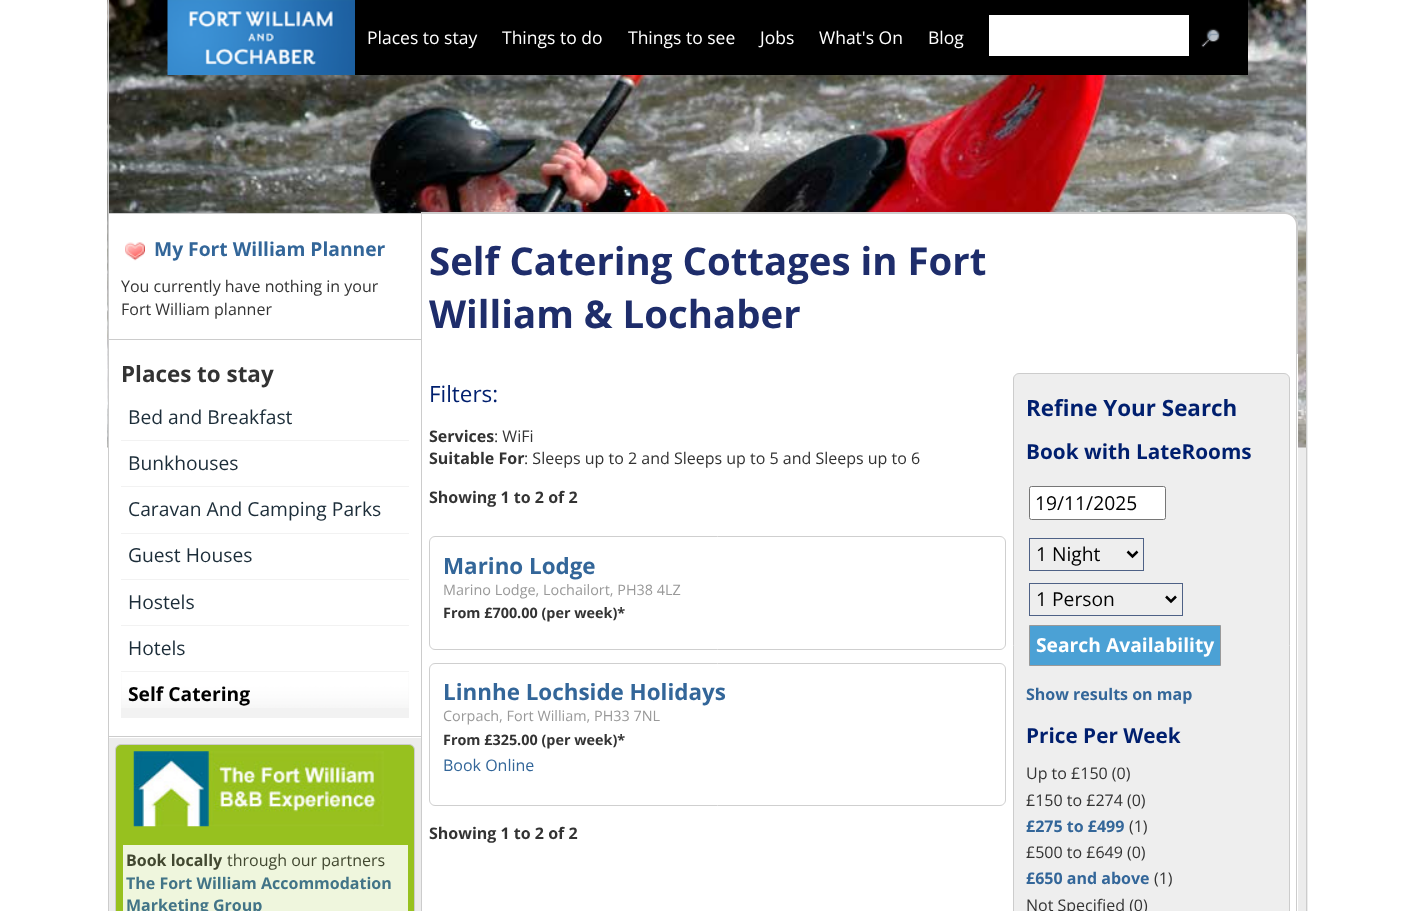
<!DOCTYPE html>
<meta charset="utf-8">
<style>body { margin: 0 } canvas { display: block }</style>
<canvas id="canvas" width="1415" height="911"></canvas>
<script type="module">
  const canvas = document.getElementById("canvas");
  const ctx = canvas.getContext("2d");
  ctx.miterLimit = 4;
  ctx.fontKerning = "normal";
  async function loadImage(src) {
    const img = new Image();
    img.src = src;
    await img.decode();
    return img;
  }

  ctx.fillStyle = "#ffffff";
  ctx.fillRect(0, 0, 1415, 911);
  ctx.fillStyle = "#ececec";
  ctx.fillRect(109, 0, 1199, 911);
  ctx.drawImage(await loadImage("img3.png"), 107, 0, 1199, 448);
  ctx.drawImage(await loadImage("img1.png"), 167, 0, 188, 75);
  ctx.fillStyle = "#000000";
  ctx.fillRect(355, 0, 893, 75);
  ctx.font = "17.5px Open Sans";
  ctx.fillStyle = "#ffffff";
  ctx.fillText("Places to stay", 367, 44);
  ctx.fillText("Things to do", 502, 44);
  ctx.fillText("Things to see", 628, 44);
  ctx.fillText("Jobs", 760, 44);
  ctx.fillText("What's On", 819, 44);
  ctx.fillText("Blog", 928, 44);
  ctx.fillRect(989, 15, 200, 41);
  ctx.drawImage(await loadImage("img2.png"), 1201, 28, 19, 20);
  ctx.fillStyle = "#cccccc";
  ctx.fillRect(1306, 0, 1, 911);
  ctx.fillRect(108, 0, 1, 911);
  ctx.fillStyle = "#ffffff";
  ctx.fillRect(109, 214, 312, 125);
  ctx.fillStyle = "#cccccc";
  ctx.fillRect(109, 213, 312, 1);
  ctx.drawImage(await loadImage("img4.png"), 125, 242, 20, 19);
  ctx.font = "bold 19.25px Open Sans";
  ctx.fillStyle = "#336699";
  ctx.fillText("My Fort William Planner", 154, 256);
  ctx.font = "16px Open Sans";
  ctx.fillStyle = "#333333";
  ctx.fillText("You currently have nothing in your", 121, 292);
  ctx.fillText("Fort William planner", 121, 315);
  ctx.fillStyle = "#ffffff";
  ctx.fillRect(109, 340, 312, 398);
  ctx.fillStyle = "#cccccc";
  ctx.fillRect(109, 339, 312, 1);
  ctx.fillRect(109, 736, 312, 1);
  ctx.font = "bold 22.4px Open Sans";
  ctx.fillStyle = "#333333";
  ctx.fillText("Places to stay", 121, 382);
  ctx.fillStyle = "#f2f2f2";
  ctx.fillRect(121, 440, 288, 1);
  ctx.font = "19.25px Open Sans";
  ctx.fillStyle = "#1c2d39";
  ctx.fillText("Bed and Breakfast", 128, 424);
  ctx.fillStyle = "#f2f2f2";
  ctx.fillRect(121, 486, 288, 1);
  ctx.fillStyle = "#1c2d39";
  ctx.fillText("Bunkhouses", 128, 470);
  ctx.fillStyle = "#f2f2f2";
  ctx.fillRect(121, 533, 288, 1);
  ctx.fillStyle = "#1c2d39";
  ctx.fillText("Caravan And Camping Parks", 128, 516);
  ctx.fillStyle = "#f2f2f2";
  ctx.fillRect(121, 579, 288, 1);
  ctx.fillStyle = "#1c2d39";
  ctx.fillText("Guest Houses", 128, 562);
  ctx.fillStyle = "#f2f2f2";
  ctx.fillRect(121, 625, 288, 1);
  ctx.fillStyle = "#1c2d39";
  ctx.fillText("Hostels", 128, 609);
  ctx.fillStyle = "#f2f2f2";
  ctx.fillRect(121, 671, 288, 1);
  ctx.fillStyle = "#1c2d39";
  ctx.fillText("Hotels", 128, 655);
  ctx.fillStyle = "#f2f2f2";
  ctx.fillRect(121, 673, 288, 45);
  ctx.drawImage(await loadImage("img5.png"), 121, 673, 288, 35);
  ctx.font = "bold 19.25px Open Sans";
  ctx.fillStyle = "#000000";
  ctx.fillText("Self Catering", 128, 701);
  ctx.fillStyle = "#97c11f";
  ctx.beginPath();
  ctx.roundRect(115.5, 744.5, 299, 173, 5.5);
  ctx.fill();
  ctx.strokeStyle = "#cccccc";
  ctx.stroke();
  ctx.drawImage(await loadImage("img6.png"), 133, 751, 251, 76);
  ctx.fillStyle = "#eff6dd";
  ctx.fillRect(123, 845, 285, 66);
  ctx.font = "bold 16px Open Sans";
  ctx.fillStyle = "#424830";
  ctx.fillText("Book locally", 126, 866);
  ctx.font = "16px Open Sans";
  ctx.fillText("through our partners", 227, 866);
  ctx.font = "bold 16px Open Sans";
  ctx.fillStyle = "#427487";
  ctx.fillText("The Fort William Accommodation", 126, 889);
  ctx.fillText("Marketing Group", 126, 911);
  ctx.fillStyle = "#ffffff";
  ctx.beginPath();
  ctx.roundRect(421, 213, 877, 141, [0, 13, 0, 0]);
  ctx.fill();
  ctx.fillStyle = "#cccccc";
  ctx.beginPath();
  ctx.moveTo(421, 212);
  ctx.lineTo(1285, 212);
  ctx.bezierCurveTo(1292, 212, 1298, 218, 1298, 225);
  ctx.lineTo(1298, 354);
  ctx.lineTo(421, 354);
  ctx.closePath();
  ctx.moveTo(422, 214);
  ctx.lineTo(1285, 214);
  ctx.bezierCurveTo(1291, 214, 1296, 219, 1296, 225);
  ctx.lineTo(1296, 354);
  ctx.lineTo(422, 354);
  ctx.closePath();
  ctx.fill("evenodd");
  ctx.font = "bold 38.4px Open Sans";
  ctx.fillStyle = "#1e2d6b";
  ctx.fillText("Self Catering Cottages in Fort", 429, 275);
  ctx.fillText("William & Lochaber", 429, 328);
  ctx.fillStyle = "#ffffff";
  ctx.fillRect(422, 354, 876, 557);
  ctx.fillStyle = "#cccccc";
  ctx.fillRect(1296, 354, 1, 557);
  ctx.fillRect(421, 354, 1, 557);
  ctx.font = "22.4px Open Sans";
  ctx.fillStyle = "#001f6e";
  ctx.fillText("Filters:", 429, 402);
  ctx.font = "bold 16px Open Sans";
  ctx.fillStyle = "#333333";
  ctx.fillText("Services", 429, 442);
  ctx.font = "16px Open Sans";
  ctx.fillText(": WiFi", 494, 442);
  ctx.font = "bold 16px Open Sans";
  ctx.fillText("Suitable For", 429, 464);
  ctx.font = "16px Open Sans";
  ctx.fillText(": Sleeps up to 2 and Sleeps up to 5 and Sleeps up to 6", 524, 464);
  ctx.fillStyle = "#eeeeee";
  ctx.beginPath();
  ctx.roundRect(1013.5, 373.5, 276, 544, 5.5);
  ctx.fill();
  ctx.stroke();
  ctx.font = "bold 22.4px Open Sans";
  ctx.fillStyle = "#001f6e";
  ctx.fillText("Refine Your Search", 1026, 416);
  ctx.font = "bold 20.75px Open Sans";
  ctx.fillText("Book with LateRooms", 1026, 459);
  ctx.fillStyle = "#ffffff";
  ctx.beginPath();
  ctx.roundRect(1029.5, 486.5, 136, 33, 2);
  ctx.fill();
  ctx.strokeStyle = "#767676";
  ctx.stroke();
  ctx.font = "19.25px Open Sans";
  ctx.fillStyle = "#000000";
  ctx.fillText("19/11/2025", 1035, 510);
  ctx.strokeStyle = "#4e6186";
  ctx.strokeRect(1029.5, 538.5, 114, 32);
  ctx.beginPath();
  ctx.moveTo(1127.5, 551.5);
  ctx.lineTo(1132.5, 556.5);
  ctx.lineTo(1137.5, 551.5);
  ctx.strokeStyle = "#000000";
  ctx.lineWidth = 2.5;
  ctx.stroke();
  ctx.fillText("1 Night", 1036, 561);
  ctx.strokeStyle = "#4e6186";
  ctx.lineWidth = 1;
  ctx.strokeRect(1029.5, 583.5, 153, 32);
  ctx.beginPath();
  ctx.moveTo(1166, 596.5);
  ctx.lineTo(1171, 601.5);
  ctx.lineTo(1176, 596.5);
  ctx.strokeStyle = "#000000";
  ctx.lineWidth = 2.5;
  ctx.stroke();
  ctx.fillText("1 Person", 1036, 606);
  ctx.fillStyle = "#4ba1d5";
  ctx.beginPath();
  ctx.rect(1029.5, 625.5, 191, 40);
  ctx.fill();
  ctx.strokeStyle = "#999999";
  ctx.lineWidth = 1;
  ctx.stroke();
  ctx.font = "bold 19.25px Open Sans";
  ctx.fillStyle = "#ffffff";
  ctx.fillText("Search Availability", 1036, 652);
  ctx.font = "bold 16px Open Sans";
  ctx.fillStyle = "#336699";
  ctx.fillText("Show results on map", 1026, 700);
  ctx.font = "bold 20.75px Open Sans";
  ctx.fillStyle = "#001f6e";
  ctx.fillText("Price Per Week", 1026, 743);
  ctx.font = "16px Open Sans";
  ctx.fillStyle = "#333333";
  ctx.fillText("Up to £150 (0)", 1026, 779);
  ctx.fillText("£150 to £274 (0)", 1026, 806);
  ctx.font = "bold 16px Open Sans";
  ctx.fillStyle = "#336699";
  ctx.fillText("£275 to £499", 1026, 832);
  ctx.font = "16px Open Sans";
  ctx.fillStyle = "#333333";
  ctx.fillText("(1)", 1129, 832);
  ctx.fillText("£500 to £649 (0)", 1026, 858);
  ctx.font = "bold 16px Open Sans";
  ctx.fillStyle = "#336699";
  ctx.fillText("£650 and above", 1026, 884);
  ctx.font = "16px Open Sans";
  ctx.fillStyle = "#333333";
  ctx.fillText("(1)", 1154, 884);
  ctx.fillText("Not Specified (0)", 1026, 911);
  ctx.font = "bold 16px Open Sans";
  ctx.fillText("Showing 1 to 2 of 2", 429, 503);
  ctx.beginPath();
  ctx.roundRect(429.5, 536.5, 576, 113, 5.5);
  ctx.strokeStyle = "#cfcfcf";
  ctx.stroke();
  ctx.font = "bold 22.4px Open Sans";
  ctx.fillStyle = "#336699";
  ctx.fillText("Marino Lodge", 443, 574);
  ctx.font = "14.4px Open Sans";
  ctx.fillStyle = "#999999";
  ctx.fillText("Marino Lodge, Lochailort, PH38 4LZ", 443, 595);
  ctx.font = "bold 14.4px Open Sans";
  ctx.fillStyle = "#333333";
  ctx.fillText("From £700.00 (per week)*", 443, 618);
  ctx.beginPath();
  ctx.roundRect(429.5, 663.5, 576, 142, 5.5);
  ctx.stroke();
  ctx.font = "bold 22.4px Open Sans";
  ctx.fillStyle = "#336699";
  ctx.fillText("Linnhe Lochside Holidays", 443, 700);
  ctx.font = "14.4px Open Sans";
  ctx.fillStyle = "#999999";
  ctx.fillText("Corpach, Fort William, PH33 7NL", 443, 721);
  ctx.font = "bold 14.4px Open Sans";
  ctx.fillStyle = "#333333";
  ctx.fillText("From £325.00 (per week)*", 443, 745);
  ctx.font = "16px Open Sans";
  ctx.fillStyle = "#336699";
  ctx.fillText("Book Online", 443, 771);
  ctx.font = "bold 16px Open Sans";
  ctx.fillStyle = "#333333";
  ctx.fillText("Showing 1 to 2 of 2", 429, 839);
</script>
